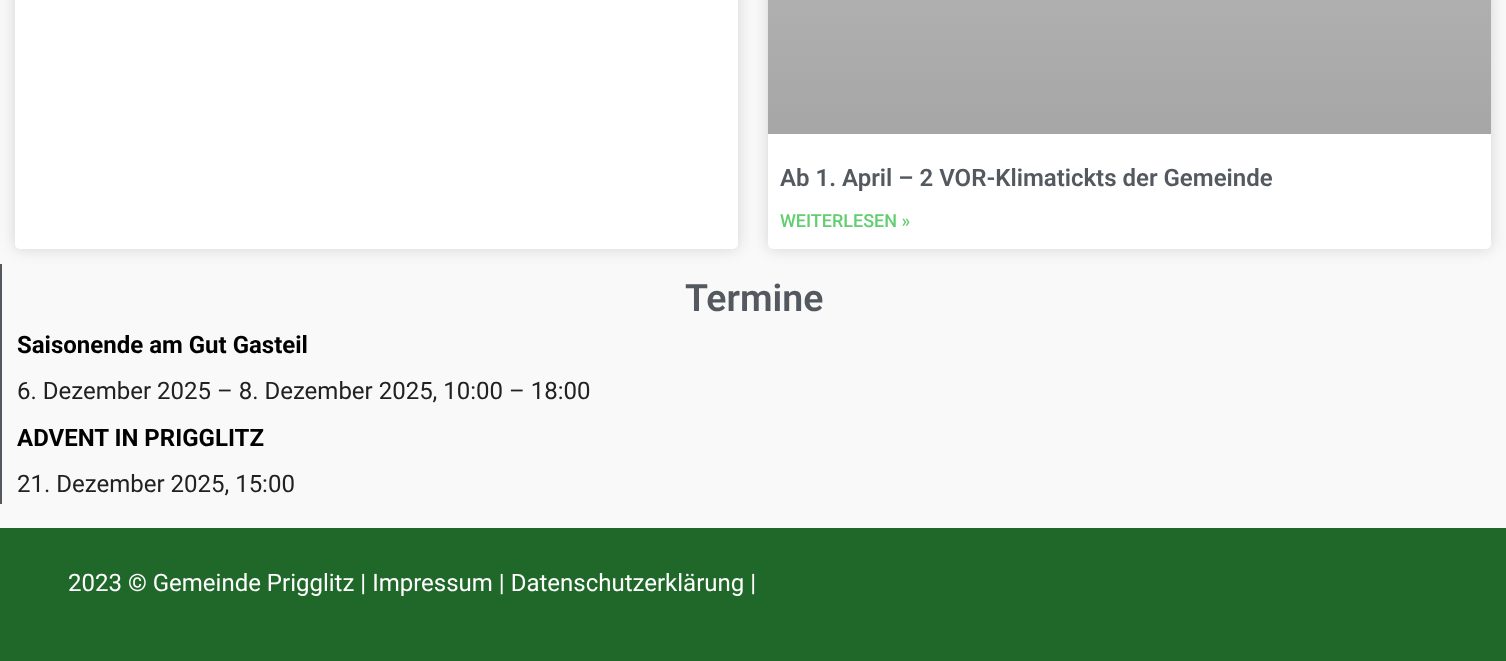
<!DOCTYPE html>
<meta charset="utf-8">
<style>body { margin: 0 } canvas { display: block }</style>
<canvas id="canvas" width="1506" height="661"></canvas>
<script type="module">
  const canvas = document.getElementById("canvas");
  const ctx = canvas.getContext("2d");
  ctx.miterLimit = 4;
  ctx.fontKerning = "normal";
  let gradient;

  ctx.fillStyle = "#f9f9f9";
  ctx.fillRect(0, 0, 1506, 661);
  ctx.fillStyle = "rgba(0, 0, 0, 0.15)";
  ctx.filter = "blur(7.5px)";
  ctx.beginPath();
  ctx.roundRect(15, -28, 723, 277, 5);
  ctx.fill();
  ctx.filter = "none";
  ctx.fillStyle = "#ffffff";
  ctx.beginPath();
  ctx.roundRect(15, -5, 723, 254, 5);
  ctx.fill();
  ctx.fillStyle = "rgba(0, 0, 0, 0.15)";
  ctx.filter = "blur(7.5px)";
  ctx.beginPath();
  ctx.roundRect(768, -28, 723, 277, 5);
  ctx.fill();
  ctx.filter = "none";
  ctx.fillStyle = "#ffffff";
  ctx.beginPath();
  ctx.roundRect(768, -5, 723, 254, 5);
  ctx.fill();
  gradient = ctx.createLinearGradient(1130, 134, 1130, -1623);
  gradient.addColorStop(0, "#a6a6a6");
  gradient.addColorStop(0.75, "#ffffff");
  ctx.fillStyle = gradient;
  ctx.fillRect(768, 0, 723, 134);
  ctx.font = "600 24px Roboto";
  ctx.fillStyle = "#54595f";
  ctx.fillText("Ab 1. April – 2 VOR-Klimatickts der Gemeinde", 780, 186);
  ctx.font = "500 18px Roboto";
  ctx.fillStyle = "#61ce70";
  ctx.fillText("WEITERLESEN »", 780, 227);
  ctx.fillStyle = "#54595f";
  ctx.fillRect(0, 264, 2, 240);
  ctx.font = "600 37.5px Roboto";
  ctx.fillText("Termine", 685, 311);
  ctx.font = "bold 24px Roboto";
  ctx.fillStyle = "#000000";
  ctx.fillText("Saisonende am Gut Gasteil", 17, 353);
  ctx.font = "24px Roboto";
  ctx.fillStyle = "#212121";
  ctx.fillText("6. Dezember 2025 – 8. Dezember 2025, 10:00 – 18:00", 17, 399);
  ctx.font = "bold 24px Roboto";
  ctx.fillStyle = "#000000";
  ctx.fillText("ADVENT IN PRIGGLITZ", 17, 446);
  ctx.font = "24px Roboto";
  ctx.fillStyle = "#212121";
  ctx.fillText("21. Dezember 2025, 15:00", 17, 492);
  ctx.fillStyle = "#20682a";
  ctx.fillRect(0, 528, 1506, 133);
  ctx.fillStyle = "#ffffff";
  ctx.fillText("2023 © Gemeinde Prigglitz | Impressum | Datenschutzerklärung |", 68, 591);
</script>
